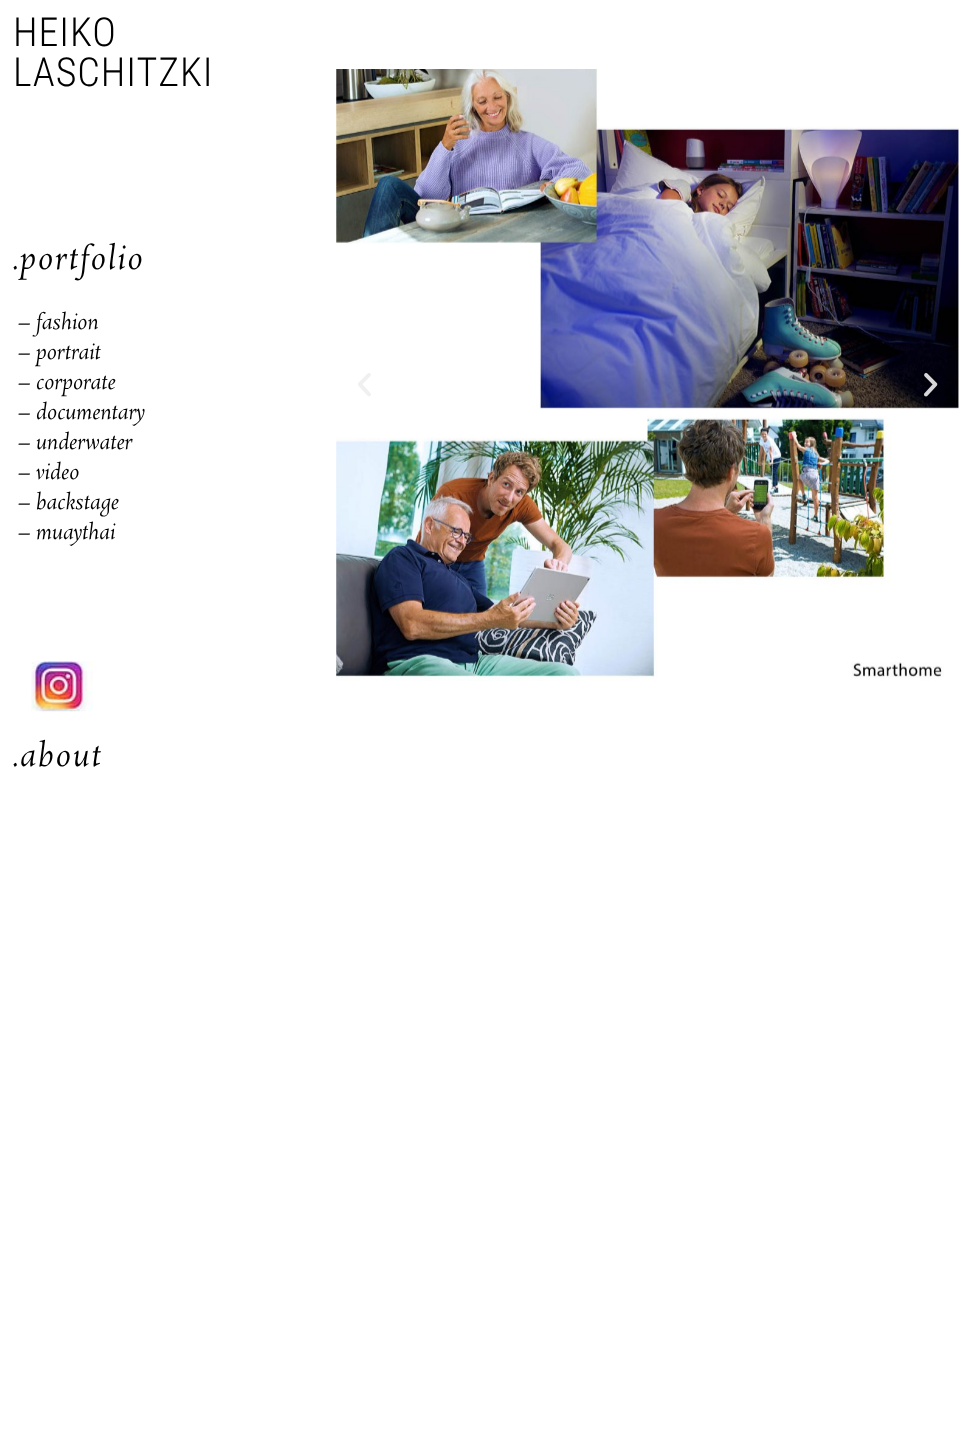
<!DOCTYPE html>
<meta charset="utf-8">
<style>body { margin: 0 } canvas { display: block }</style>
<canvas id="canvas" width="971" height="1444"></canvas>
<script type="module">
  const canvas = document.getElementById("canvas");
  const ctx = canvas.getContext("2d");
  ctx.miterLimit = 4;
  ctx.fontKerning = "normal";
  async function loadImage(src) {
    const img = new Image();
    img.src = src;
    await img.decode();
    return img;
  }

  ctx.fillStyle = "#ffffff";
  ctx.fillRect(0, 0, 971, 1444);
  ctx.letterSpacing = "0.9px";
  ctx.font = "300 40px Roboto Condensed";
  ctx.fillStyle = "#000000";
  ctx.fillText("HEIKO", 13, 46);
  ctx.fillText("LASCHITZKI", 13, 86);
  ctx.letterSpacing = "1.9px";
  ctx.font = "italic 30px Rosarivo";
  ctx.fillText(".portfolio", 13, 269);
  ctx.letterSpacing = "0px";
  ctx.font = "italic 20px Rosarivo";
  ctx.fillText("– fashion", 18, 329);
  ctx.fillText("– portrait", 18, 359);
  ctx.fillText("– corporate", 18, 389);
  ctx.fillText("– documentary", 18, 419);
  ctx.fillText("– underwater", 18, 449);
  ctx.fillText("– video", 18, 479);
  ctx.fillText("– backstage", 18, 509);
  ctx.fillText("– muaythai", 18, 539);
  ctx.drawImage(await loadImage("img1.png"), 31, 661, 62, 51);
  ctx.letterSpacing = "1.9px";
  ctx.font = "italic 30px Rosarivo";
  ctx.fillText(".about", 13, 766);
  ctx.drawImage(await loadImage("img2.png"), 336, 69, 623, 612);
  ctx.fillStyle = "rgba(254, 255, 254, 0.38)";
  ctx.fillRect(958, 129, 1, 280);
  ctx.drawImage(await loadImage("img3.png"), 358, 373, 13, 24);
  ctx.drawImage(await loadImage("img4.png"), 924, 373, 14, 24);
</script>
